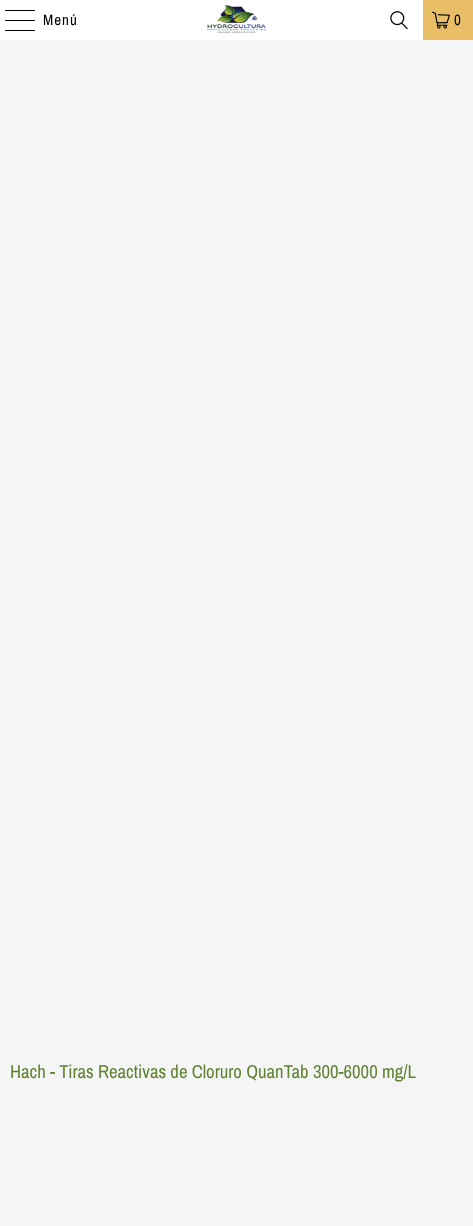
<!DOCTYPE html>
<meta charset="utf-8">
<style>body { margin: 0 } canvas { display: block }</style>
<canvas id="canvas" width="473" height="1226"></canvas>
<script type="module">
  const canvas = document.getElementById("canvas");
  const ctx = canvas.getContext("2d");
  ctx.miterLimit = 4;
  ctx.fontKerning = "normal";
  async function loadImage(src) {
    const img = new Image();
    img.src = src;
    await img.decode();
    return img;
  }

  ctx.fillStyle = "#f5f5f5";
  ctx.fillRect(0, 0, 473, 1226);
  ctx.fillStyle = "#ffffff";
  ctx.fillRect(0, 0, 423, 40);
  ctx.fillStyle = "#000000";
  ctx.beginPath();
  ctx.roundRect(5, 10, 30, 1, 0.5);
  ctx.fill();
  ctx.beginPath();
  ctx.roundRect(5, 20, 30, 1, 0.5);
  ctx.fill();
  ctx.beginPath();
  ctx.roundRect(5, 30, 30, 1, 0.5);
  ctx.fill();
  ctx.letterSpacing = "1px";
  ctx.font = "15px Archivo Narrow";
  ctx.fillText("Menú", 43, 25);
  ctx.drawImage(await loadImage("img1.png"), 207, 5, 60, 28);
  ctx.drawImage(await loadImage("img2.png"), 390, 11, 18, 19);
  ctx.fillStyle = "#e8bf67";
  ctx.fillRect(423, 0, 50, 40);
  ctx.drawImage(await loadImage("img3.png"), 432, 11, 18, 18);
  ctx.fillStyle = "#000000";
  ctx.fillText("0", 454, 25);
  ctx.letterSpacing = "0px";
  ctx.font = "18.7px Archivo Narrow";
  ctx.fillStyle = "#5f8232";
  ctx.fillText("Hach - Tiras Reactivas de Cloruro QuanTab 300-6000 mg/L", 10, 1078);
</script>
